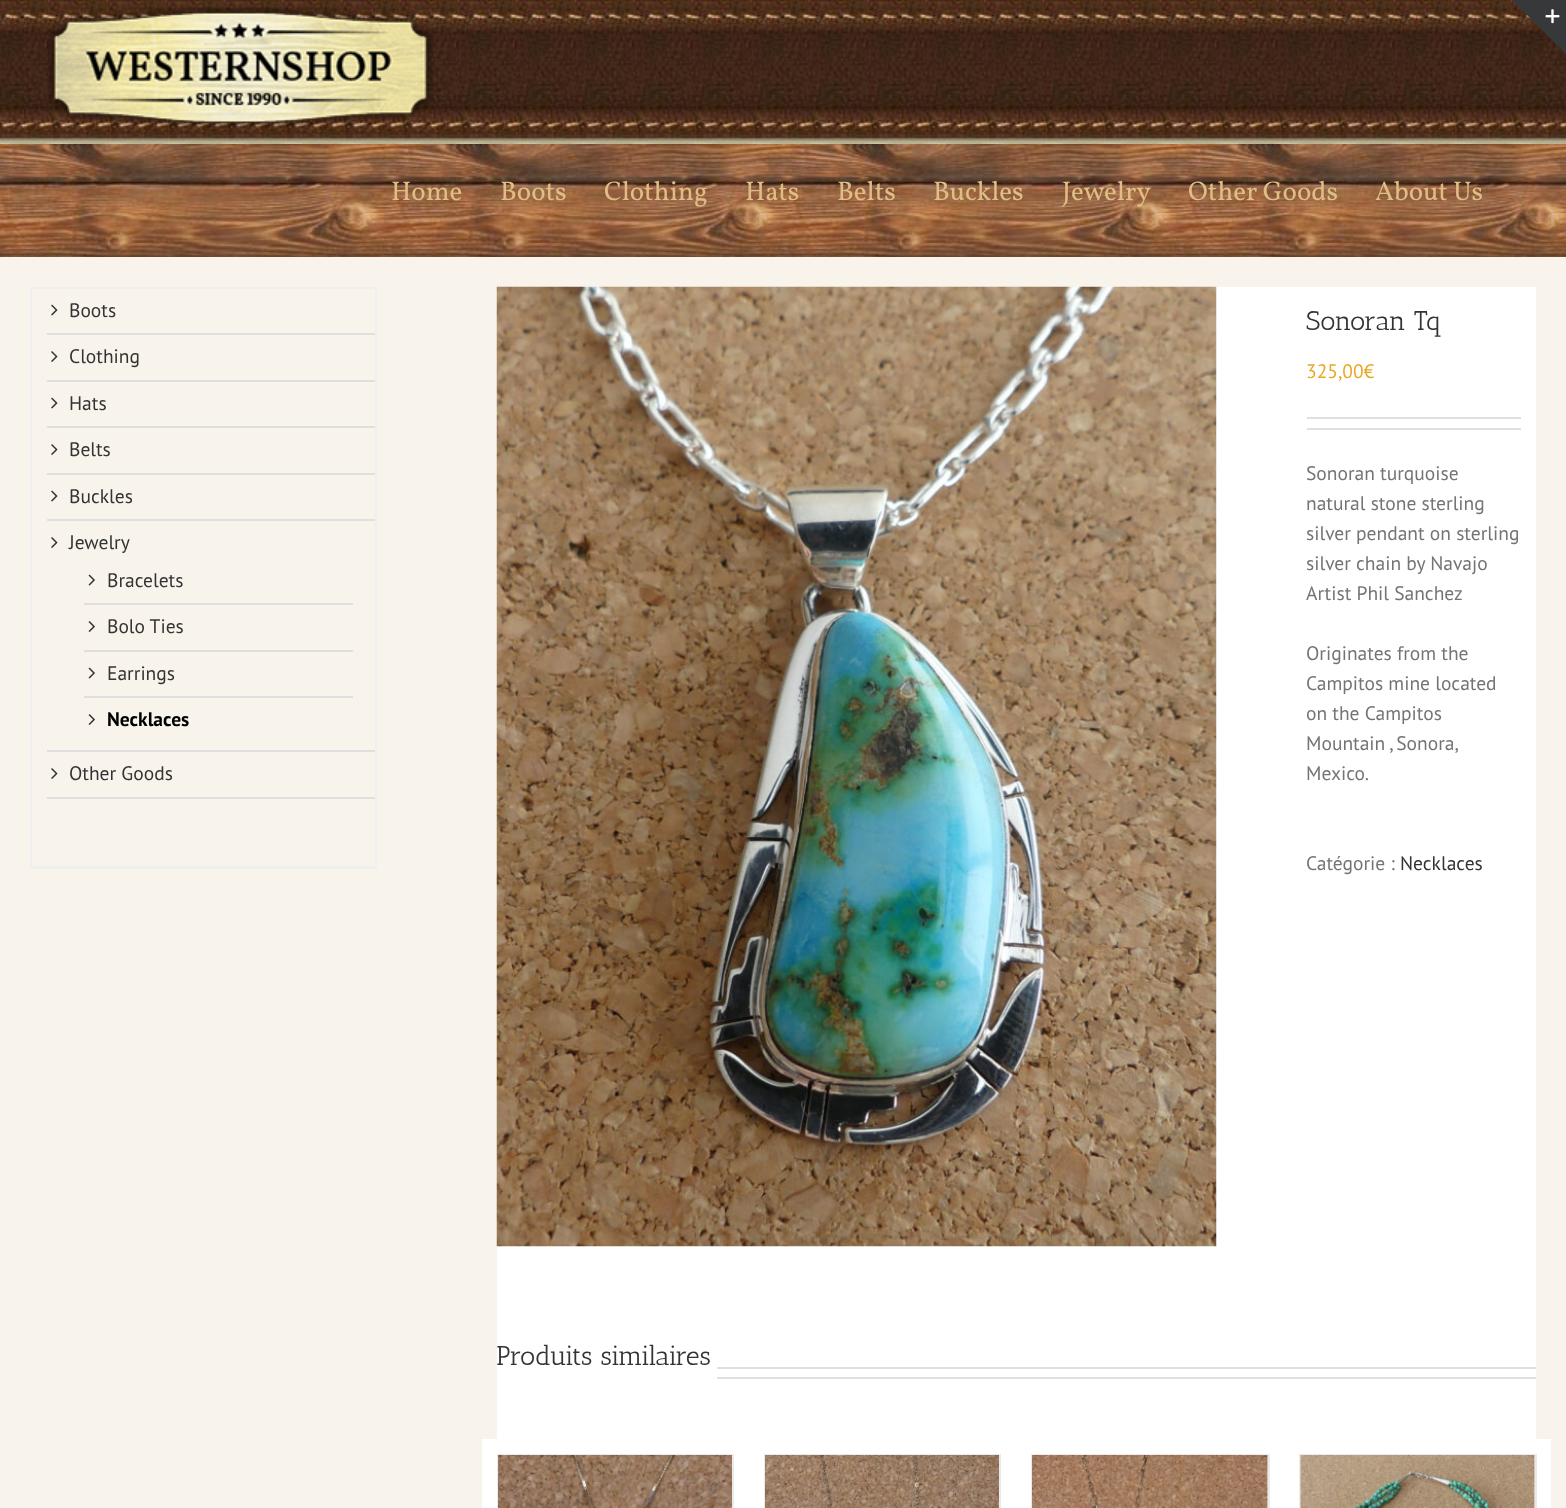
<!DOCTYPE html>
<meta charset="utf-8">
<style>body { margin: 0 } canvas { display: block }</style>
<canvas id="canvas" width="1566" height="1508"></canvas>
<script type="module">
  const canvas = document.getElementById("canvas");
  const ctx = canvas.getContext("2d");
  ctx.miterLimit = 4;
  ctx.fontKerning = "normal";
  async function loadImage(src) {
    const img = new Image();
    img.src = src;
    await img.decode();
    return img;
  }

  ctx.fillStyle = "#ffffff";
  ctx.fillRect(0, 0, 1566, 1508);
  ctx.drawImage(await loadImage("img1.png"), 0, 144, 1566, 113);
  ctx.drawImage(await loadImage("img3.png"), 0, 0, 1566, 144);
  ctx.fillStyle = "#363839";
  ctx.beginPath();
  ctx.moveTo(1512, 0);
  ctx.lineTo(1566, 0);
  ctx.lineTo(1566, 54);
  ctx.closePath();
  ctx.fill();
  ctx.drawImage(await loadImage("img2.png"), 1545, 9, 15, 15);
  ctx.drawImage(await loadImage("img4.png"), 47, 7, 387, 121);
  ctx.font = "27px Vollkorn";
  ctx.fillStyle = "#dfbe86";
  ctx.fillText("Home", 391, 200);
  ctx.fillText("Boots", 500, 200);
  ctx.fillText("Clothing", 604, 200);
  ctx.fillText("Hats", 745, 200);
  ctx.fillText("Belts", 837, 200);
  ctx.fillText("Buckles", 933, 200);
  ctx.fillText("Jewelry", 1062, 200);
  ctx.fillText("Other Goods", 1188, 200);
  ctx.fillText("About Us", 1375, 200);
  ctx.fillStyle = "#f8f4eb";
  ctx.fillRect(0, 257, 1566, 1251);
  ctx.fillStyle = "#efefef";
  ctx.fillRect(30, 287, 347, 2);
  ctx.fillRect(375, 287, 2, 582);
  ctx.fillRect(30, 866, 347, 3);
  ctx.fillRect(30, 287, 2, 582);
  ctx.fillStyle = "#e0dede";
  ctx.fillRect(47, 333, 328, 2);
  ctx.drawImage(await loadImage("img5.png"), 51, 304, 7, 12);
  ctx.font = "19.5px PT Sans";
  ctx.fillStyle = "#333333";
  ctx.fillText("Boots", 69, 317);
  ctx.fillStyle = "#e0dede";
  ctx.fillRect(47, 380, 328, 2);
  ctx.drawImage(await loadImage("img6.png"), 51, 351, 7, 11);
  ctx.fillStyle = "#333333";
  ctx.fillText("Clothing", 69, 363);
  ctx.fillStyle = "#e0dede";
  ctx.fillRect(47, 426, 328, 2);
  ctx.drawImage(await loadImage("img5.png"), 51, 397, 7, 12);
  ctx.fillStyle = "#333333";
  ctx.fillText("Hats", 69, 410);
  ctx.fillStyle = "#e0dede";
  ctx.fillRect(47, 473, 328, 2);
  ctx.drawImage(await loadImage("img6.png"), 51, 444, 7, 11);
  ctx.fillStyle = "#333333";
  ctx.fillText("Belts", 69, 456);
  ctx.fillStyle = "#e0dede";
  ctx.fillRect(47, 519, 328, 2);
  ctx.drawImage(await loadImage("img5.png"), 51, 490, 7, 12);
  ctx.fillStyle = "#333333";
  ctx.fillText("Buckles", 69, 503);
  ctx.fillStyle = "#e0dede";
  ctx.fillRect(47, 750, 328, 2);
  ctx.drawImage(await loadImage("img6.png"), 51, 537, 7, 11);
  ctx.fillStyle = "#333333";
  ctx.fillText("Jewelry", 69, 549);
  ctx.fillStyle = "#e0dede";
  ctx.fillRect(84, 603, 269, 2);
  ctx.drawImage(await loadImage("img7.png"), 88, 574, 7, 12);
  ctx.fillStyle = "#333333";
  ctx.fillText("Bracelets", 107, 587);
  ctx.fillStyle = "#e0dede";
  ctx.fillRect(84, 650, 269, 2);
  ctx.drawImage(await loadImage("img8.png"), 88, 621, 7, 11);
  ctx.fillStyle = "#333333";
  ctx.fillText("Bolo Ties", 107, 633);
  ctx.fillStyle = "#e0dede";
  ctx.fillRect(84, 696, 269, 2);
  ctx.drawImage(await loadImage("img7.png"), 88, 667, 7, 12);
  ctx.fillStyle = "#333333";
  ctx.fillText("Earrings", 107, 680);
  ctx.drawImage(await loadImage("img8.png"), 88, 714, 7, 11);
  ctx.font = "bold 19.5px PT Sans";
  ctx.fillStyle = "#000000";
  ctx.fillText("Necklaces", 107, 726);
  ctx.fillStyle = "#e0dede";
  ctx.fillRect(47, 797, 328, 2);
  ctx.drawImage(await loadImage("img6.png"), 51, 768, 7, 11);
  ctx.font = "19.5px PT Sans";
  ctx.fillStyle = "#333333";
  ctx.fillText("Other Goods", 69, 780);
  ctx.fillStyle = "#ffffff";
  ctx.fillRect(497, 287, 1039, 1221);
  ctx.drawImage(await loadImage("img9.png"), 496, 286, 721, 961);
  ctx.font = "27px Antic Slab";
  ctx.fillStyle = "#333333";
  ctx.fillText("Sonoran Tq", 1306, 330);
  ctx.font = "19.5px PT Sans";
  ctx.fillStyle = "#e9a825";
  ctx.fillText("325,00€", 1306, 378);
  ctx.fillStyle = "#e0dede";
  ctx.fillRect(1307, 417, 214, 2);
  ctx.fillRect(1307, 428, 214, 2);
  ctx.fillStyle = "#747474";
  ctx.fillText("Sonoran turquoise", 1306, 480);
  ctx.fillText("natural stone sterling", 1306, 510);
  ctx.fillText("silver pendant on sterling", 1306, 540);
  ctx.fillText("silver chain by Navajo", 1306, 570);
  ctx.fillText("Artist Phil Sanchez", 1306, 600);
  ctx.fillText("Originates from the", 1306, 660);
  ctx.fillText("Campitos mine located", 1306, 690);
  ctx.fillText("on the Campitos", 1306, 720);
  ctx.wordSpacing = "-1px";
  ctx.fillText("Mountain , Sonora,", 1306, 750);
  ctx.wordSpacing = "0px";
  ctx.fillText("Mexico.", 1306, 780);
  ctx.fillText("Catégorie :", 1306, 870);
  ctx.fillStyle = "#333333";
  ctx.fillText("Necklaces", 1400, 870);
  ctx.font = "27px Antic Slab";
  ctx.fillText("Produits similaires", 496, 1365);
  ctx.fillStyle = "#e0dede";
  ctx.fillRect(717, 1367, 819, 2);
  ctx.fillRect(717, 1377, 819, 2);
  ctx.fillStyle = "#ffffff";
  ctx.fillRect(482, 1439, 15, 69);
  ctx.fillStyle = "#ebeaea";
  ctx.fillRect(497, 1454, 237, 1);
  ctx.fillRect(732, 1454, 2, 54);
  ctx.fillRect(497, 1454, 2, 54);
  ctx.drawImage(await loadImage("img10.png"), 498, 1455, 234, 53);
  ctx.fillRect(764, 1454, 237, 1);
  ctx.fillRect(999, 1454, 2, 54);
  ctx.fillRect(764, 1454, 2, 54);
  ctx.drawImage(await loadImage("img11.png"), 765, 1455, 234, 53);
  ctx.fillRect(1031, 1454, 238, 2);
  ctx.fillRect(1268, 1454, 2, 54);
  ctx.fillRect(1031, 1454, 2, 54);
  ctx.drawImage(await loadImage("img12.png"), 1032, 1455, 236, 53);
  ctx.fillStyle = "#ffffff";
  ctx.fillRect(1536, 1439, 15, 69);
  ctx.fillStyle = "#ebeaea";
  ctx.fillRect(1299, 1454, 237, 2);
  ctx.fillRect(1535, 1454, 2, 54);
  ctx.fillRect(1299, 1454, 2, 54);
  ctx.drawImage(await loadImage("img13.png"), 1300, 1455, 235, 53);
</script>
